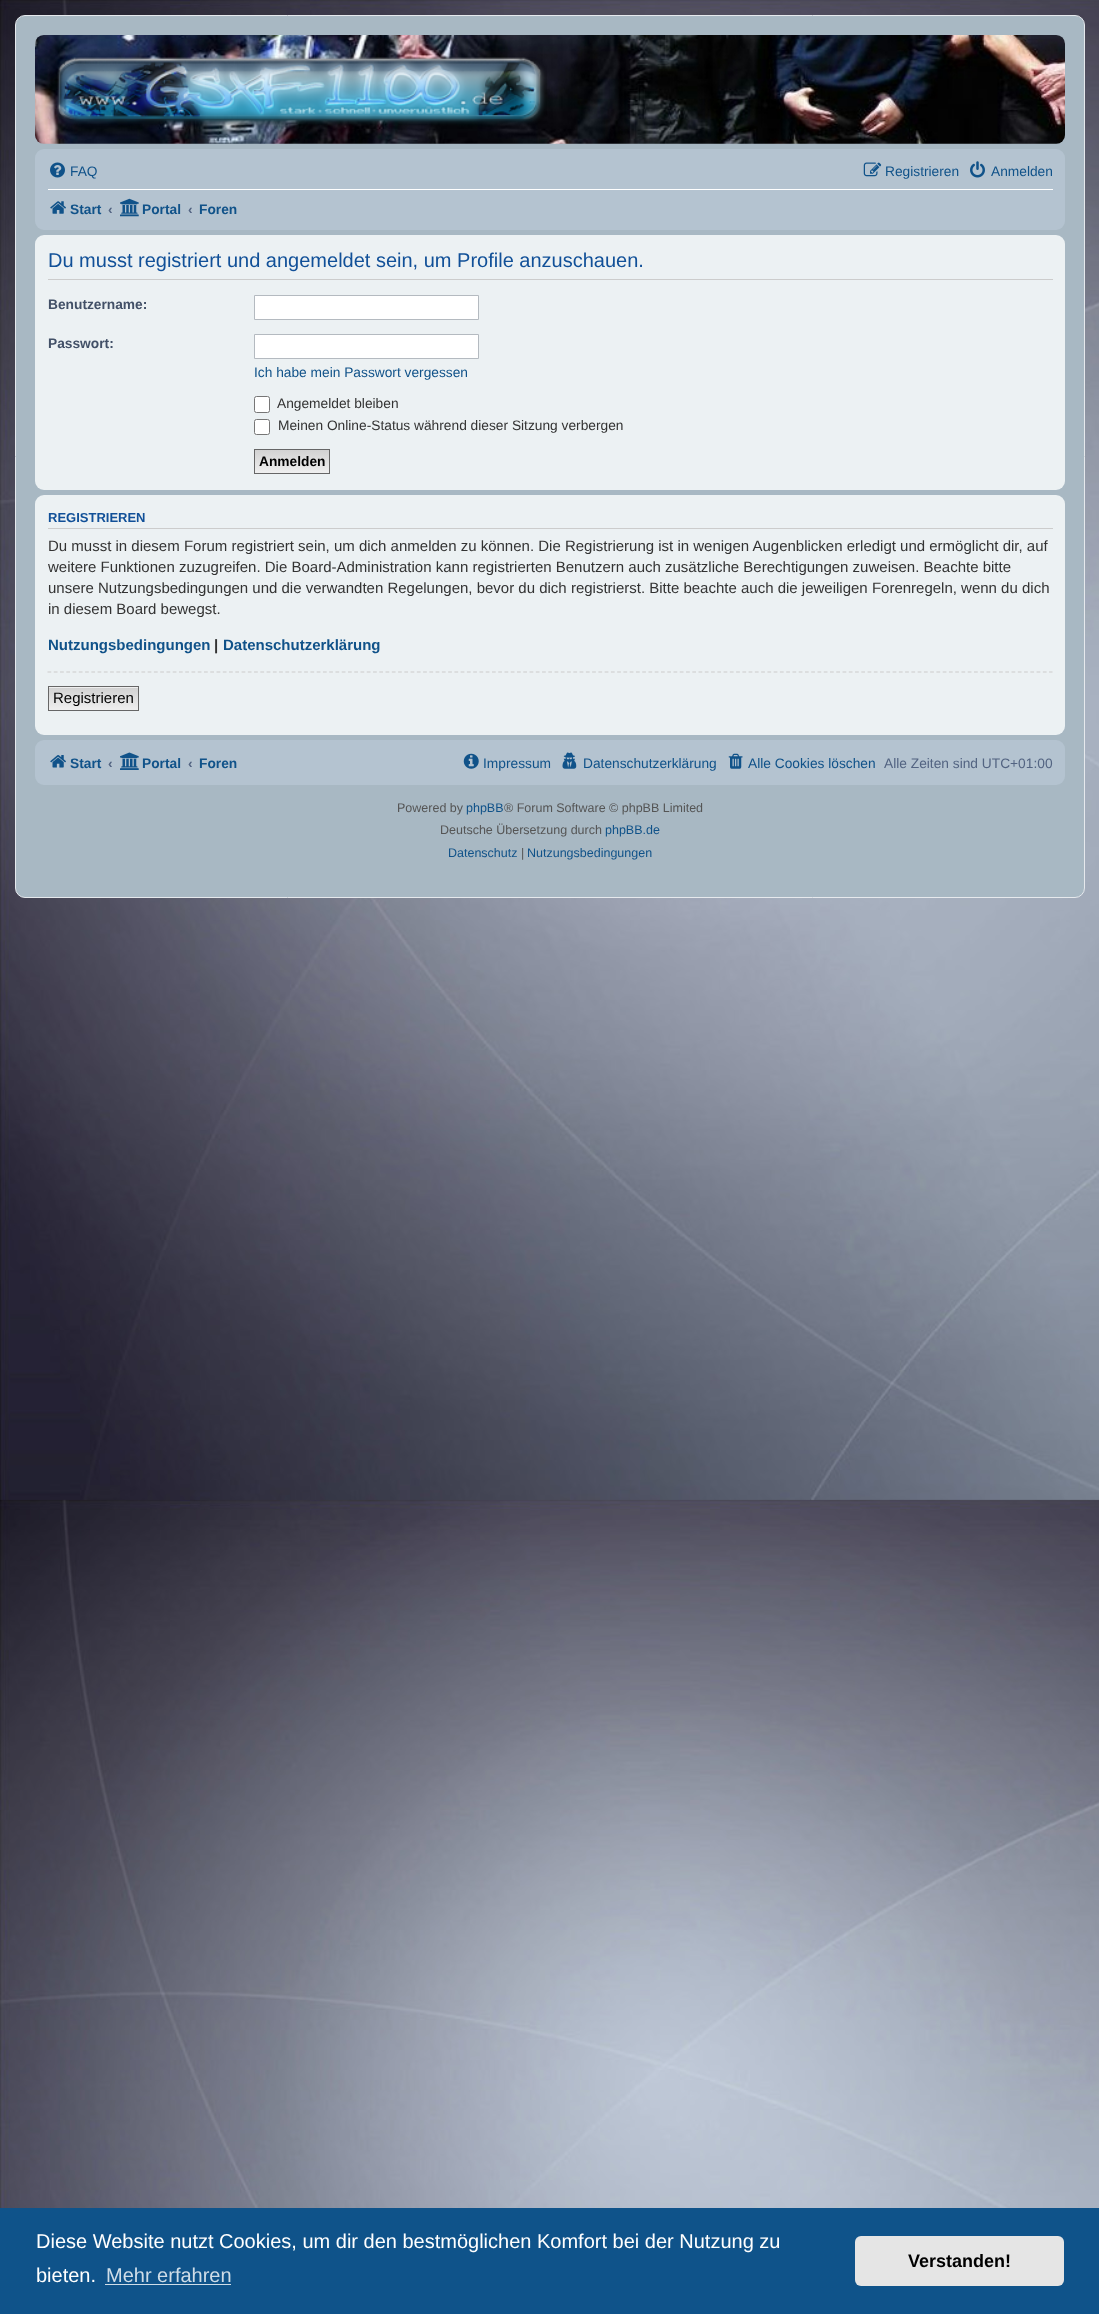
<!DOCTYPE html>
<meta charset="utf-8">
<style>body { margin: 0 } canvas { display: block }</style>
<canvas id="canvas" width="1099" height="2314"></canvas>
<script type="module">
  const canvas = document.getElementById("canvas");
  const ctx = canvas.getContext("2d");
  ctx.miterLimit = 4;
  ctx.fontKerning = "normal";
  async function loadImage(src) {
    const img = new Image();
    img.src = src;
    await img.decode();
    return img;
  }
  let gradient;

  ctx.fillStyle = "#ffffff";
  ctx.fillRect(0, 0, 1099, 2314);
  ctx.drawImage(await loadImage("img1.png"), 0, 913, 1099, 1295);
  ctx.drawImage(await loadImage("img2.png"), 0, 0, 1099, 913);
  ctx.fillStyle = "#a8b8c3";
  ctx.beginPath();
  ctx.roundRect(15.5, 15.5, 1069, 882, 9.5);
  ctx.fill();
  ctx.strokeStyle = "#e6e9ed";
  ctx.stroke();
  ctx.drawImage(await loadImage("img3.png"), 35, 35, 1030, 109);
  ctx.drawImage(await loadImage("img4.png"), 57, 57, 490, 72);
  ctx.fillStyle = "#b4c3d0";
  ctx.beginPath();
  ctx.roundRect(35, 149, 1030, 81, 9);
  ctx.fill();
  ctx.drawImage(await loadImage("img5.png"), 50, 162, 15, 16);
  ctx.font = "13.75px Liberation Sans";
  ctx.fillStyle = "#105289";
  ctx.fillText("FAQ", 70, 176);
  ctx.drawImage(await loadImage("img6.png"), 863, 162, 19, 15);
  ctx.fillText("Registrieren", 885, 176);
  ctx.drawImage(await loadImage("img7.png"), 970, 161, 15, 17);
  ctx.fillText("Anmelden", 991, 176);
  ctx.fillStyle = "#ffffff";
  ctx.fillRect(48, 189, 1005, 1);
  ctx.drawImage(await loadImage("img8.png"), 50, 201, 16, 13);
  ctx.font = "bold 13.75px Liberation Sans";
  ctx.fillStyle = "#105289";
  ctx.fillText("Start", 70, 214);
  ctx.fillStyle = "#536482";
  ctx.fillText("‹", 108, 214);
  ctx.drawImage(await loadImage("img9.png"), 120, 198, 19, 19);
  ctx.fillStyle = "#105289";
  ctx.fillText("Portal", 142, 214);
  ctx.fillStyle = "#536482";
  ctx.fillText("‹", 188, 214);
  ctx.fillStyle = "#105289";
  ctx.fillText("Foren", 199, 214);
  ctx.fillStyle = "#ecf1f3";
  ctx.beginPath();
  ctx.roundRect(35, 235, 1030, 255, 9);
  ctx.fill();
  ctx.fillStyle = "#cccccc";
  ctx.fillRect(48, 279, 1005, 1);
  ctx.font = "20px Liberation Sans";
  ctx.fillStyle = "#115098";
  ctx.fillText("Du musst registriert und angemeldet sein, um Profile anzuschauen.", 48, 267);
  ctx.font = "bold 13.75px Liberation Sans";
  ctx.fillStyle = "#425067";
  ctx.fillText("Benutzername:", 48, 309);
  ctx.fillStyle = "#ffffff";
  ctx.beginPath();
  ctx.rect(254.5, 295.5, 224, 24);
  ctx.fill();
  ctx.strokeStyle = "#b4bac0";
  ctx.stroke();
  ctx.fillStyle = "#425067";
  ctx.fillText("Passwort:", 48, 348);
  ctx.fillStyle = "#ffffff";
  ctx.beginPath();
  ctx.rect(254.5, 334.5, 224, 24);
  ctx.fill();
  ctx.stroke();
  ctx.font = "13.75px Liberation Sans";
  ctx.fillStyle = "#105289";
  ctx.fillText("Ich habe mein Passwort vergessen", 254, 377);
  ctx.fillStyle = "#ffffff";
  ctx.beginPath();
  ctx.roundRect(254.5, 396.5, 15, 16, 2);
  ctx.fill();
  ctx.strokeStyle = "#767676";
  ctx.stroke();
  ctx.fillStyle = "#333333";
  ctx.fillText("Angemeldet bleiben", 277, 408);
  ctx.fillStyle = "#ffffff";
  ctx.beginPath();
  ctx.roundRect(254.5, 419.5, 15, 15, 2);
  ctx.fill();
  ctx.stroke();
  ctx.fillStyle = "#333333";
  ctx.fillText("Meinen Online-Status während dieser Sitzung verbergen", 278, 430);
  gradient = ctx.createLinearGradient(292, 450, 292, 473);
  gradient.addColorStop(0, "#d2d2d2");
  gradient.addColorStop(1, "#efefef");
  ctx.fillStyle = gradient;
  ctx.fillRect(255, 450, 74, 23);
  ctx.strokeStyle = "#666666";
  ctx.strokeRect(254.5, 449.5, 75, 24);
  ctx.font = "bold 13.75px Liberation Sans";
  ctx.fillStyle = "#000000";
  ctx.fillText("Anmelden", 259, 466);
  ctx.fillStyle = "#ecf1f3";
  ctx.beginPath();
  ctx.roundRect(35, 495, 1030, 240, 9);
  ctx.fill();
  ctx.fillStyle = "#cccccc";
  ctx.fillRect(48, 528, 1005, 1);
  ctx.font = "bold 13px Liberation Sans";
  ctx.fillStyle = "#115098";
  ctx.fillText("REGISTRIEREN", 48, 522);
  ctx.font = "15px Liberation Sans";
  ctx.fillStyle = "#333333";
  ctx.fillText("Du musst in diesem Forum registriert sein, um dich anmelden zu können. Die Registrierung ist in wenigen Augenblicken erledigt und ermöglicht dir, auf", 48, 551);
  ctx.fillText("weitere Funktionen zuzugreifen. Die Board-Administration kann registrierten Benutzern auch zusätzliche Berechtigungen zuweisen. Beachte bitte", 48, 572);
  ctx.fillText("unsere Nutzungsbedingungen und die verwandten Regelungen, bevor du dich registrierst. Bitte beachte auch die jeweiligen Forenregeln, wenn du dich", 48, 593);
  ctx.fillText("in diesem Board bewegst.", 48, 614);
  ctx.font = "bold 15px Liberation Sans";
  ctx.fillStyle = "#105289";
  ctx.fillText("Nutzungsbedingungen", 48, 650);
  ctx.fillStyle = "#333333";
  ctx.fillText("|", 214, 650);
  ctx.fillStyle = "#105289";
  ctx.fillText("Datenschutzerklärung", 223, 650);
  ctx.beginPath();
  ctx.moveTo(47.5, 672);
  ctx.lineTo(1052.5, 672);
  ctx.strokeStyle = "#cccccc";
  ctx.lineWidth = 1.2;
  ctx.setLineDash([3.75, 2.51]);
  ctx.stroke();
  ctx.fillStyle = "#efefef";
  ctx.fillRect(49, 687, 89, 1);
  gradient = ctx.createLinearGradient(93, 688, 93, 710);
  gradient.addColorStop(0, "#d2d2d2");
  gradient.addColorStop(1, "#efefef");
  ctx.fillStyle = gradient;
  ctx.fillRect(49, 688, 89, 22);
  ctx.strokeStyle = "#666666";
  ctx.lineWidth = 1;
  ctx.setLineDash([]);
  ctx.strokeRect(48.5, 686.5, 90, 24);
  ctx.font = "15px Liberation Sans";
  ctx.fillStyle = "#000000";
  ctx.fillText("Registrieren", 53, 703);
  ctx.fillStyle = "#b4c3d0";
  ctx.beginPath();
  ctx.roundRect(35, 740, 1030, 45, 9);
  ctx.fill();
  ctx.drawImage(await loadImage("img10.png"), 50, 755, 16, 13);
  ctx.font = "bold 13.75px Liberation Sans";
  ctx.fillStyle = "#105289";
  ctx.fillText("Start", 70, 768);
  ctx.fillStyle = "#536482";
  ctx.fillText("‹", 108, 768);
  ctx.drawImage(await loadImage("img11.png"), 120, 752, 19, 18);
  ctx.fillStyle = "#105289";
  ctx.fillText("Portal", 142, 768);
  ctx.fillStyle = "#536482";
  ctx.fillText("‹", 188, 768);
  ctx.fillStyle = "#105289";
  ctx.fillText("Foren", 199, 768);
  ctx.drawImage(await loadImage("img12.png"), 463, 753, 16, 16);
  ctx.font = "13.75px Liberation Sans";
  ctx.fillText("Impressum", 483, 768);
  ctx.drawImage(await loadImage("img13.png"), 562, 752, 15, 17);
  ctx.fillText("Datenschutzerklärung", 583, 768);
  ctx.drawImage(await loadImage("img14.png"), 728, 753, 15, 16);
  ctx.fillText("Alle Cookies löschen", 748, 768);
  ctx.fillStyle = "#536482";
  ctx.fillText("Alle Zeiten sind UTC+01:00", 884, 768);
  ctx.font = "12.5px Liberation Sans";
  ctx.fillStyle = "#555555";
  ctx.fillText("Powered by", 397, 812);
  ctx.fillStyle = "#105289";
  ctx.fillText("phpBB", 466, 812);
  ctx.fillStyle = "#555555";
  ctx.fillText("® Forum Software © phpBB Limited", 504, 812);
  ctx.fillText("Deutsche Übersetzung durch", 440, 834);
  ctx.fillStyle = "#105289";
  ctx.fillText("phpBB.de", 605, 834);
  ctx.fillText("Datenschutz", 448, 857);
  ctx.fillStyle = "#555555";
  ctx.fillText("|", 521, 857);
  ctx.fillStyle = "#105289";
  ctx.fillText("Nutzungsbedingungen", 527, 857);
  ctx.fillStyle = "#0f538a";
  ctx.fillRect(0, 2208, 1099, 106);
  ctx.font = "20px Liberation Sans";
  ctx.fillStyle = "#ffffff";
  ctx.fillText("Diese Website nutzt Cookies, um dir den bestmöglichen Komfort bei der Nutzung zu", 36, 2248);
  ctx.fillText("bieten.", 36, 2282);
  ctx.fillStyle = "#cfdde8";
  ctx.fillText("Mehr erfahren", 106, 2282);
  ctx.fillRect(105, 2284, 126, 1);
  ctx.fillStyle = "#e5e5e5";
  ctx.beginPath();
  ctx.roundRect(855, 2236, 209, 50, 6);
  ctx.fill();
  ctx.font = "bold 18px Liberation Sans";
  ctx.fillStyle = "#000000";
  ctx.fillText("Verstanden!", 908, 2267);
</script>
